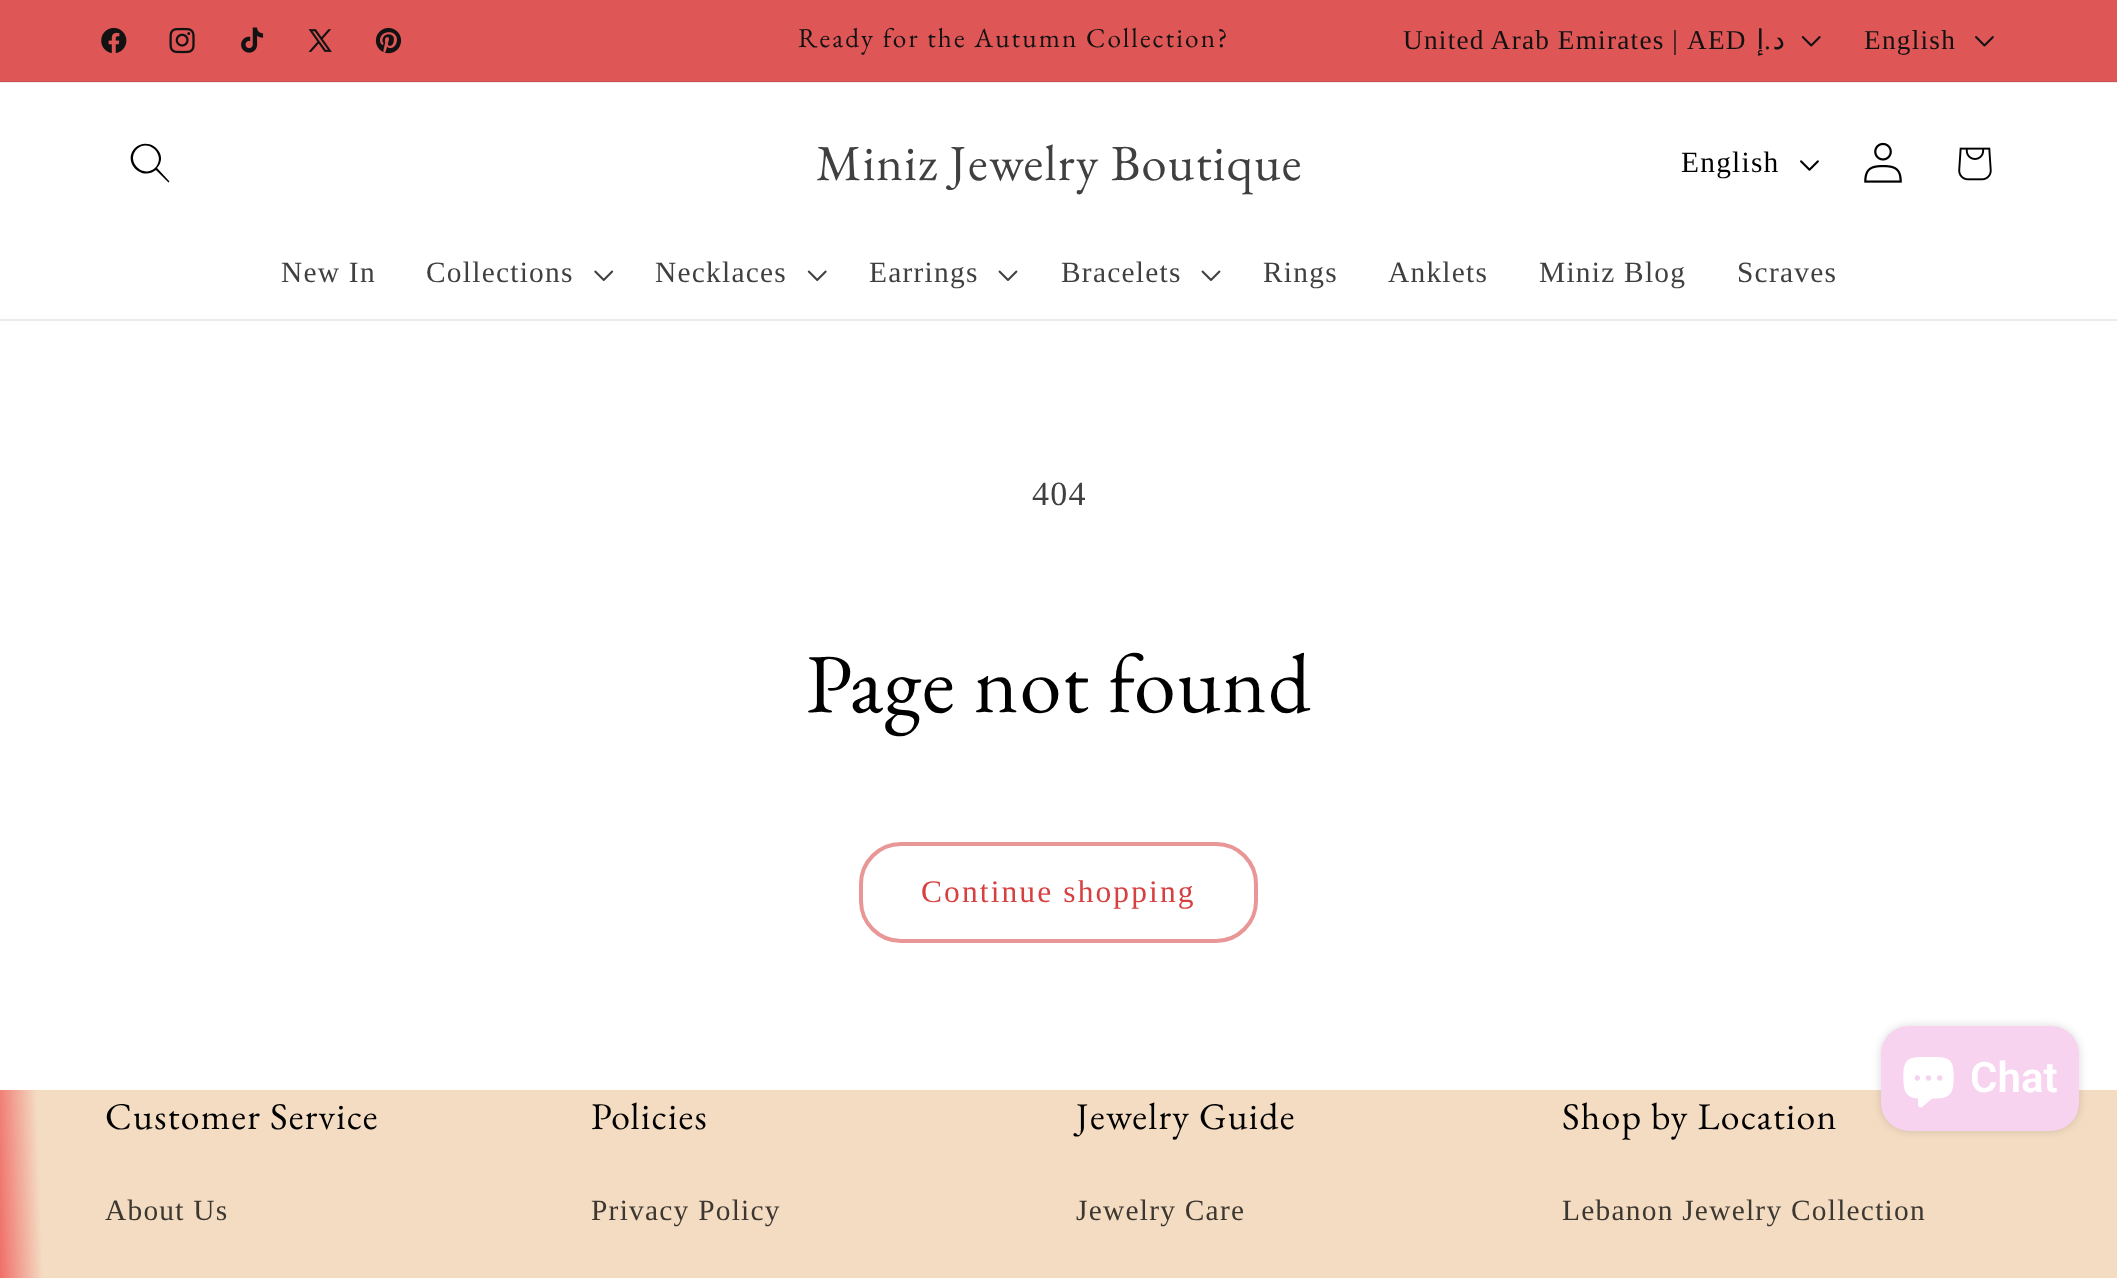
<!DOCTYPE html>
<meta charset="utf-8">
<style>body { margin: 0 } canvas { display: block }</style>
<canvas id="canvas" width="2117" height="1278"></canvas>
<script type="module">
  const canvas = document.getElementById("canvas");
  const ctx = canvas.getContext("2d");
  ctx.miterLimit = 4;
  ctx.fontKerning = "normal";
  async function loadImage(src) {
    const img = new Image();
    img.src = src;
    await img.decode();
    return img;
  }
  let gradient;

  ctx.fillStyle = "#ffffff";
  ctx.fillRect(0, 0, 2117, 1278);
  ctx.fillStyle = "#de5656";
  ctx.fillRect(0, 0, 2117, 81);
  ctx.fillStyle = "#ce5151";
  ctx.fillRect(0, 81, 2117, 1);
  ctx.drawImage(await loadImage("img1.png"), 101, 27, 26, 27);
  ctx.drawImage(await loadImage("img2.png"), 169, 27, 26, 27);
  ctx.drawImage(await loadImage("img3.png"), 241, 27, 23, 26);
  ctx.drawImage(await loadImage("img4.png"), 308, 29, 24, 23);
  ctx.drawImage(await loadImage("img5.png"), 375, 27, 27, 27);
  ctx.letterSpacing = "2.1px";
  ctx.font = "27.25px EB Garamond";
  ctx.fillStyle = "#121212";
  ctx.fillText("Ready for the Autumn Collection?", 798, 47);
  ctx.letterSpacing = "1.25px";
  ctx.wordSpacing = "-0.5px";
  ctx.font = "27.25px Liberation Serif";
  ctx.fillText("United Arab Emirates |", 1403, 49);
  ctx.wordSpacing = "0px";
  ctx.fillText("AED", 1687, 49);
  ctx.direction = "rtl";
  ctx.font = "27.25px DejaVu Sans";
  ctx.fillText("إ", 1764, 49);
  ctx.font = "27.25px Liberation Serif";
  ctx.fillText(".", 1772, 49);
  ctx.font = "27.25px DejaVu Sans";
  ctx.fillText("د", 1785, 49);
  ctx.drawImage(await loadImage("img6.png"), 1801, 36, 20, 11);
  ctx.direction = "ltr";
  ctx.font = "27.25px Liberation Serif";
  ctx.fillText("English", 1864, 49);
  ctx.drawImage(await loadImage("img7.png"), 1975, 36, 19, 11);
  ctx.fillStyle = "#ececec";
  ctx.fillRect(0, 82, 2117, 1);
  ctx.fillStyle = "#ebebeb";
  ctx.fillRect(0, 319, 2117, 2);
  ctx.fillStyle = "#000000";
  ctx.beginPath();
  ctx.moveTo(155, 168);
  ctx.bezierCurveTo(143, 179, 125, 161, 137, 149);
  ctx.bezierCurveTo(149, 138, 167, 156, 155, 168);
  ctx.moveTo(156, 170);
  ctx.bezierCurveTo(141, 182, 122, 161, 135, 148);
  ctx.bezierCurveTo(149, 135, 170, 154, 157, 168);
  ctx.lineTo(169, 181);
  ctx.bezierCurveTo(170, 182, 168, 183, 168, 182);
  ctx.closePath();
  ctx.fill("evenodd");
  ctx.font = "50.5px EB Garamond";
  ctx.fillStyle = "#404040";
  ctx.fillText("Miniz Jewelry Boutique", 816, 180);
  ctx.font = "29.4px Liberation Serif";
  ctx.fillStyle = "#000000";
  ctx.fillText("English", 1681, 172);
  ctx.drawImage(await loadImage("img8.png"), 1800, 160, 19, 11);
  ctx.drawImage(await loadImage("img9.png"), 1864, 142, 38, 41);
  ctx.drawImage(await loadImage("img10.png"), 1958, 147, 34, 34);
  ctx.fillStyle = "#404040";
  ctx.fillText("New In", 281, 282);
  ctx.fillText("Collections", 426, 282);
  ctx.drawImage(await loadImage("img11.png"), 594, 270, 20, 11);
  ctx.fillText("Necklaces", 655, 282);
  ctx.drawImage(await loadImage("img12.png"), 807, 270, 20, 11);
  ctx.fillText("Earrings", 869, 282);
  ctx.drawImage(await loadImage("img13.png"), 998, 270, 20, 11);
  ctx.fillText("Bracelets", 1061, 282);
  ctx.drawImage(await loadImage("img13.png"), 1201, 270, 20, 11);
  ctx.fillText("Rings", 1263, 282);
  ctx.fillText("Anklets", 1388, 282);
  ctx.fillText("Miniz Blog", 1539, 282);
  ctx.fillText("Scraves", 1737, 282);
  ctx.font = "34px Liberation Serif";
  ctx.fillText("404", 1032, 505);
  ctx.font = "84px EB Garamond";
  ctx.fillStyle = "#000000";
  ctx.fillText("Page not found", 806, 712);
  ctx.beginPath();
  ctx.roundRect(861, 844, 395, 97, 40);
  ctx.strokeStyle = "#e99696";
  ctx.lineWidth = 4;
  ctx.stroke();
  ctx.letterSpacing = "2.1px";
  ctx.font = "31.5px Liberation Serif";
  ctx.fillStyle = "#d74040";
  ctx.fillText("Continue shopping", 921, 902);
  gradient = ctx.createLinearGradient(-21, 677, 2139, 602);
  gradient.addColorStop(0, "#f06e69");
  gradient.addColorStop(0.02, "#f3dcc2");
  ctx.fillStyle = gradient;
  ctx.fillRect(0, 1090, 2117, 188);
  ctx.fillStyle = "rgba(0, 0, 0, 0.15)";
  ctx.filter = "blur(4.5px)";
  ctx.beginPath();
  ctx.roundRect(1881, 1026, 198, 105, 28);
  ctx.fill();
  ctx.filter = "none";
  ctx.fillStyle = "#f7d3f0";
  ctx.beginPath();
  ctx.roundRect(1881, 1026, 198, 105, 28);
  ctx.fill();
  ctx.drawImage(await loadImage("img14.png"), 1903, 1057, 51, 51);
  ctx.letterSpacing = "0px";
  ctx.font = "600 42px Roboto";
  ctx.fillStyle = "#ffffff";
  ctx.fillText("Chat", 1970, 1092);
  ctx.letterSpacing = "1.25px";
  ctx.font = "37.75px EB Garamond";
  ctx.fillStyle = "#000000";
  ctx.fillText("Customer Service", 105, 1129);
  ctx.font = "29.4px Liberation Serif";
  ctx.fillStyle = "#3d3731";
  ctx.fillText("About Us", 105, 1220);
  ctx.font = "37.75px EB Garamond";
  ctx.fillStyle = "#000000";
  ctx.fillText("Policies", 591, 1129);
  ctx.font = "29.4px Liberation Serif";
  ctx.fillStyle = "#3d3731";
  ctx.fillText("Privacy Policy", 591, 1220);
  ctx.font = "37.75px EB Garamond";
  ctx.fillStyle = "#000000";
  ctx.fillText("Jewelry Guide", 1076, 1129);
  ctx.font = "29.4px Liberation Serif";
  ctx.fillStyle = "#3d3731";
  ctx.fillText("Jewelry Care", 1076, 1220);
  ctx.font = "37.75px EB Garamond";
  ctx.fillStyle = "#000000";
  ctx.fillText("Shop by Location", 1562, 1129);
  ctx.font = "29.4px Liberation Serif";
  ctx.fillStyle = "#3d3731";
  ctx.fillText("Lebanon Jewelry Collection", 1562, 1220);
</script>
